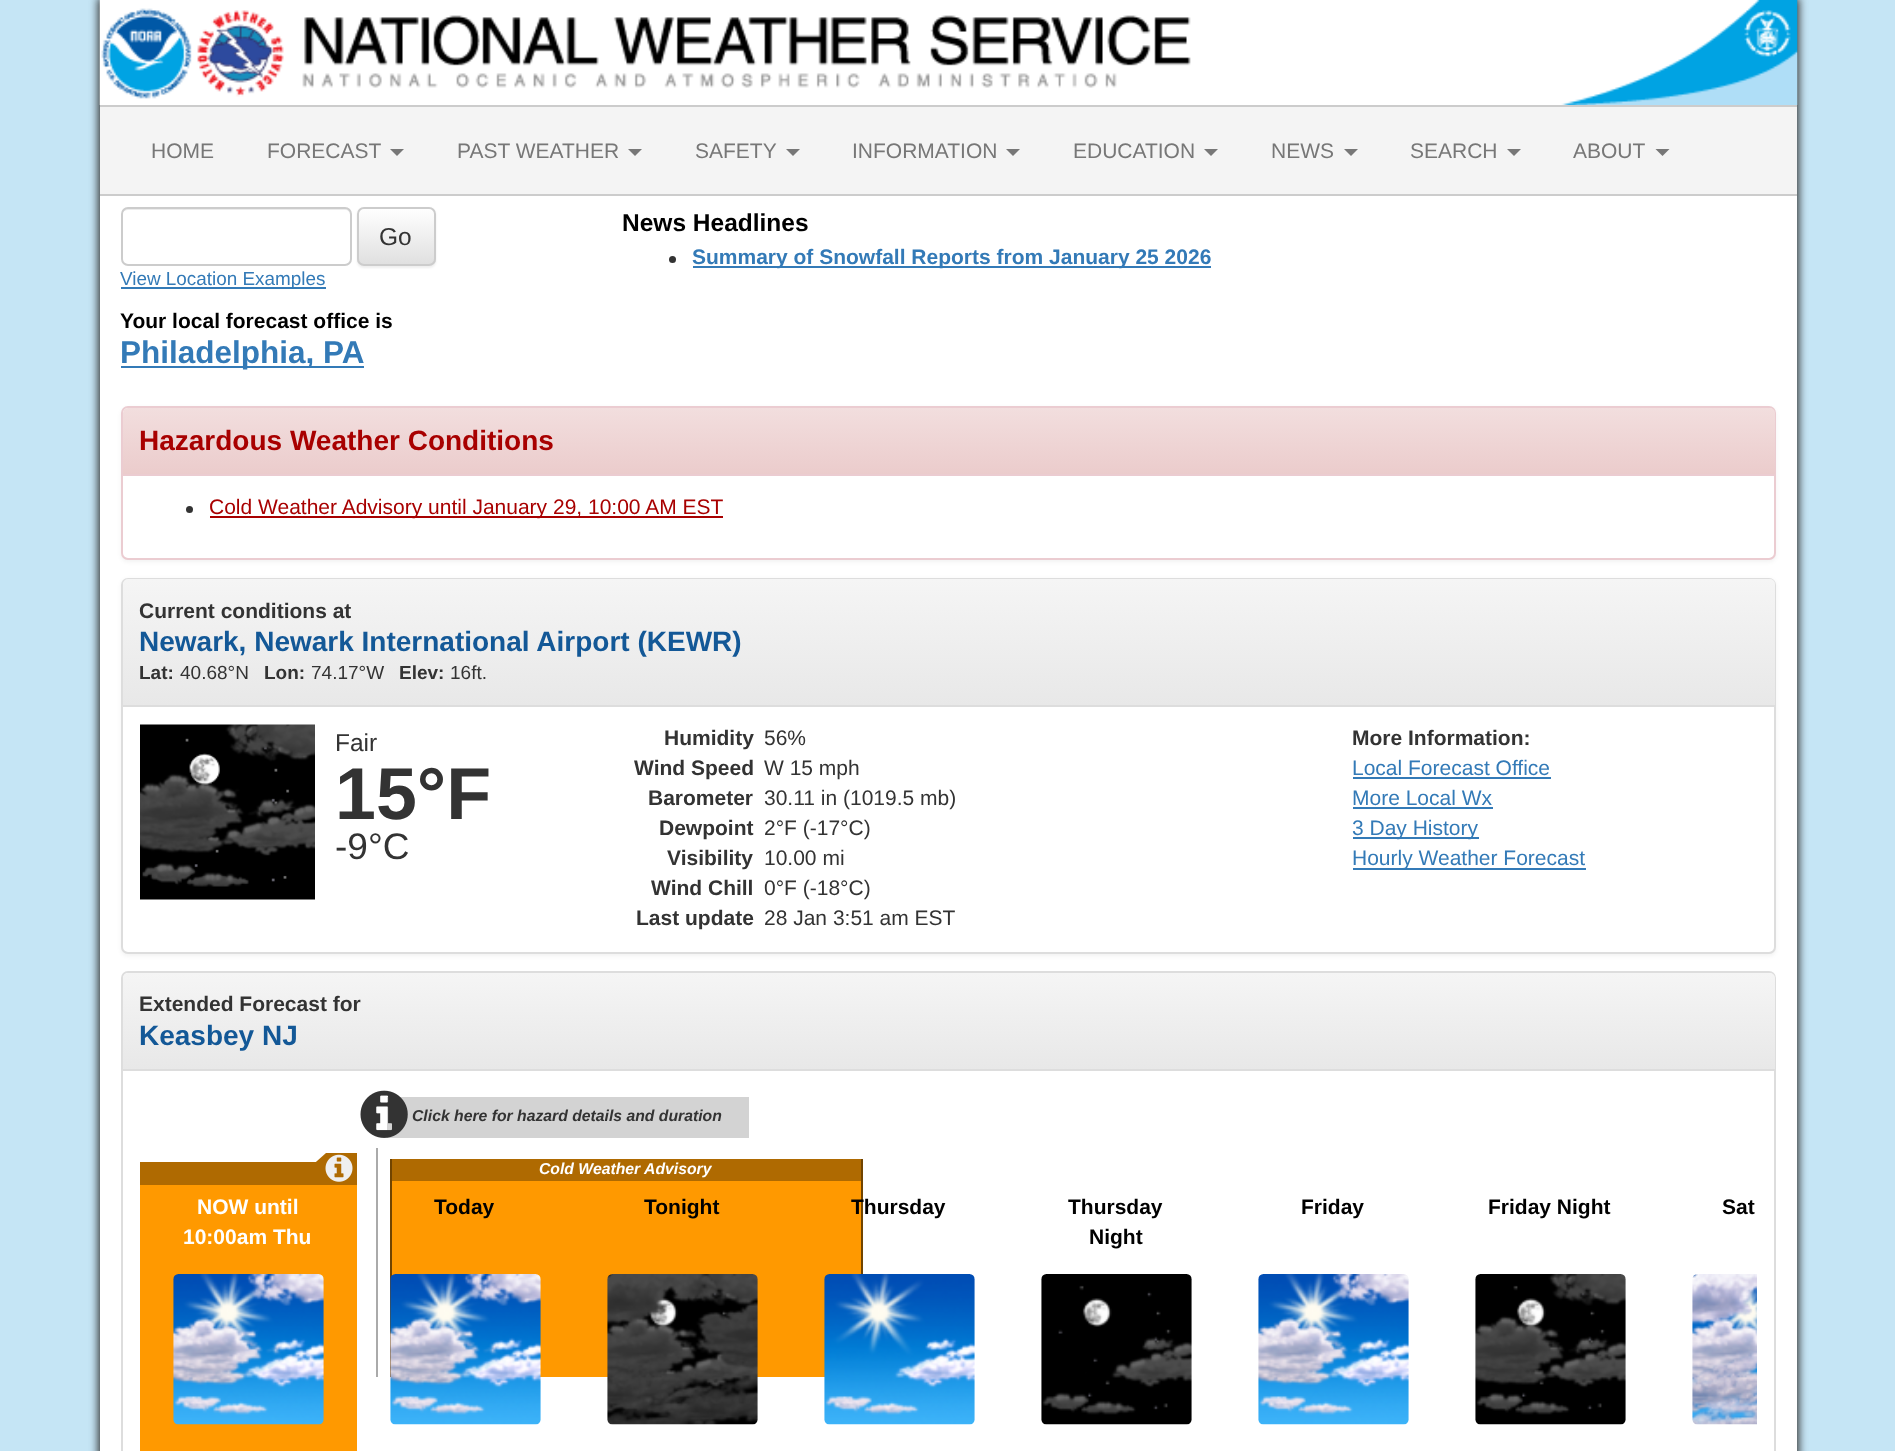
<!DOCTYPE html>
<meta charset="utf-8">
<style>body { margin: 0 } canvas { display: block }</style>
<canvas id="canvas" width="1895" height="1451"></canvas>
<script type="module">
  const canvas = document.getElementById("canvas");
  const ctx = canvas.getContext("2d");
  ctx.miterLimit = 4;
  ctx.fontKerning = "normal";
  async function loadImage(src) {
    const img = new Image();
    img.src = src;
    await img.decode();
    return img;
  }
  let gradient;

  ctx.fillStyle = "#c5e5f5";
  ctx.fillRect(0, 0, 1895, 1451);
  ctx.fillStyle = "#333333";
  ctx.filter = "blur(4.5px)";
  ctx.beginPath();
  ctx.rect(98, -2, 1701, 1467);
  ctx.fill();
  ctx.filter = "none";
  ctx.fillStyle = "#ffffff";
  ctx.fillRect(100, 0, 1697, 1451);
  ctx.drawImage(await loadImage("img1.png"), 99, 0, 93, 105);
  ctx.drawImage(await loadImage("img2.png"), 197, 10, 994, 87);
  ctx.drawImage(await loadImage("img3.png"), 1561, 0, 237, 105);
  ctx.fillStyle = "#f4f4f4";
  ctx.fillRect(100, 107, 1697, 87);
  ctx.fillStyle = "#cccccc";
  ctx.fillRect(100, 105, 1697, 2);
  ctx.fillRect(100, 194, 1697, 2);
  ctx.font = "21px Liberation Sans";
  ctx.fillStyle = "#777777";
  ctx.fillText("HOME", 151, 158);
  ctx.fillText("FORECAST", 267, 158);
  ctx.beginPath();
  ctx.moveTo(390, 149);
  ctx.lineTo(404, 149);
  ctx.lineTo(397, 156);
  ctx.closePath();
  ctx.fill();
  ctx.fillText("PAST WEATHER", 457, 158);
  ctx.beginPath();
  ctx.moveTo(628, 149);
  ctx.lineTo(642, 149);
  ctx.lineTo(635, 156);
  ctx.closePath();
  ctx.fill();
  ctx.fillText("SAFETY", 695, 158);
  ctx.beginPath();
  ctx.moveTo(786, 149);
  ctx.lineTo(800, 149);
  ctx.lineTo(793, 156);
  ctx.closePath();
  ctx.fill();
  ctx.fillText("INFORMATION", 852, 158);
  ctx.beginPath();
  ctx.moveTo(1006, 149);
  ctx.lineTo(1020, 149);
  ctx.lineTo(1013, 156);
  ctx.closePath();
  ctx.fill();
  ctx.fillText("EDUCATION", 1073, 158);
  ctx.beginPath();
  ctx.moveTo(1204, 149);
  ctx.lineTo(1218, 149);
  ctx.lineTo(1211, 156);
  ctx.closePath();
  ctx.fill();
  ctx.fillText("NEWS", 1271, 158);
  ctx.beginPath();
  ctx.moveTo(1344, 149);
  ctx.lineTo(1358, 149);
  ctx.lineTo(1351, 156);
  ctx.closePath();
  ctx.fill();
  ctx.fillText("SEARCH", 1410, 158);
  ctx.beginPath();
  ctx.moveTo(1507, 149);
  ctx.lineTo(1521, 149);
  ctx.lineTo(1514, 156);
  ctx.closePath();
  ctx.fill();
  ctx.fillText("ABOUT", 1573, 158);
  ctx.beginPath();
  ctx.moveTo(1655.5, 149);
  ctx.lineTo(1669.5, 149);
  ctx.lineTo(1662.5, 156);
  ctx.closePath();
  ctx.fill();
  ctx.fillStyle = "#ececec";
  ctx.beginPath();
  ctx.moveTo(128, 210);
  ctx.lineTo(345, 210);
  ctx.bezierCurveTo(348, 210, 350, 212, 350, 215);
  ctx.lineTo(350, 213);
  ctx.bezierCurveTo(350, 210, 348, 208, 345, 208);
  ctx.lineTo(128, 208);
  ctx.bezierCurveTo(126, 208, 123, 210, 123, 212);
  ctx.bezierCurveTo(124, 211, 126, 210, 128, 210);
  ctx.closePath();
  ctx.fill();
  ctx.beginPath();
  ctx.roundRect(122, 208, 229, 57, 6);
  ctx.strokeStyle = "#cccccc";
  ctx.lineWidth = 2;
  ctx.stroke();
  ctx.fillStyle = "rgba(0, 0, 0, 0.07)";
  ctx.filter = "blur(1px)";
  ctx.beginPath();
  ctx.roundRect(357, 208, 79, 60, 7);
  ctx.fill();
  ctx.filter = "none";
  ctx.save();
  ctx.beginPath();
  ctx.roundRect(357, 207, 79, 59, 7);
  ctx.clip();
  gradient = ctx.createLinearGradient(396, 208, 396, 264);
  gradient.addColorStop(0, "#ffffff");
  gradient.addColorStop(1, "#e0e0e0");
  ctx.fillStyle = gradient;
  ctx.fillRect(357, 208, 79, 56);
  ctx.restore();
  ctx.beginPath();
  ctx.roundRect(358, 208, 77, 57, 6);
  ctx.stroke();
  ctx.font = "24.5px Liberation Sans";
  ctx.fillStyle = "#333333";
  ctx.fillText("Go", 379, 245);
  ctx.fillStyle = "#337ab7";
  ctx.fillRect(121, 287, 205, 2);
  ctx.font = "18.9px Liberation Sans";
  ctx.fillText("View Location Examples", 120, 285);
  ctx.font = "bold 21px Liberation Sans";
  ctx.fillStyle = "#000000";
  ctx.fillText("Your local forecast office is", 120, 328);
  ctx.fillStyle = "#337ab7";
  ctx.fillRect(121, 366, 243, 2);
  ctx.font = "bold 31.5px Liberation Sans";
  ctx.fillText("Philadelphia, PA", 120, 363);
  ctx.font = "bold 24.5px Liberation Sans";
  ctx.fillStyle = "#000000";
  ctx.fillText("News Headlines", 622, 231);
  ctx.fillStyle = "#333333";
  ctx.beginPath();
  ctx.arc(672.5, 259.5, 3.5, 0, Math.PI * 2);
  ctx.fill();
  ctx.fillStyle = "#337ab7";
  ctx.fillRect(693, 266, 518, 2);
  ctx.font = "bold 21px Liberation Sans";
  ctx.fillText("Summary of Snowfall Reports from January 25 2026", 692, 264);
  ctx.fillStyle = "rgba(0, 0, 0, 0.05)";
  ctx.filter = "blur(2px)";
  ctx.beginPath();
  ctx.roundRect(121, 408, 1655, 154, 7);
  ctx.fill();
  ctx.filter = "none";
  ctx.fillStyle = "#ffffff";
  ctx.beginPath();
  ctx.roundRect(122, 407, 1653, 152, 6);
  ctx.fill();
  ctx.strokeStyle = "#ebccd1";
  ctx.stroke();
  gradient = ctx.createLinearGradient(949, 408, 949, 474);
  gradient.addColorStop(0, "#f2dede");
  gradient.addColorStop(1, "#ebcccc");
  ctx.fillStyle = gradient;
  ctx.beginPath();
  ctx.roundRect(123, 408, 1652, 66, [5, 5, 0, 0]);
  ctx.fill();
  ctx.fillStyle = "#ebccd1";
  ctx.fillRect(123, 474, 1652, 2);
  ctx.font = "bold 28px Liberation Sans";
  ctx.fillStyle = "#a80000";
  ctx.fillText("Hazardous Weather Conditions", 139, 450);
  ctx.fillStyle = "#333333";
  ctx.beginPath();
  ctx.arc(189.5, 509.5, 3.5, 0, Math.PI * 2);
  ctx.fill();
  ctx.fillStyle = "#a80000";
  ctx.fillRect(210, 516, 513, 2);
  ctx.font = "21px Liberation Sans";
  ctx.fillText("Cold Weather Advisory until January 29, 10:00 AM EST", 209, 514);
  ctx.fillStyle = "rgba(0, 0, 0, 0.05)";
  ctx.filter = "blur(2px)";
  ctx.beginPath();
  ctx.roundRect(121, 579, 1655, 377, 7);
  ctx.fill();
  ctx.filter = "none";
  ctx.fillStyle = "#ffffff";
  ctx.beginPath();
  ctx.roundRect(122, 579, 1653, 374, 6);
  ctx.fill();
  ctx.strokeStyle = "#dddddd";
  ctx.stroke();
  gradient = ctx.createLinearGradient(949, 579, 949, 705);
  gradient.addColorStop(0, "#f5f5f5");
  gradient.addColorStop(1, "#e8e8e8");
  ctx.fillStyle = gradient;
  ctx.beginPath();
  ctx.roundRect(123, 579, 1652, 126, [5, 5, 0, 0]);
  ctx.fill();
  ctx.fillStyle = "#dddddd";
  ctx.fillRect(123, 705, 1652, 2);
  ctx.font = "bold 21px Liberation Sans";
  ctx.fillStyle = "#333333";
  ctx.fillText("Current conditions at", 139, 618);
  ctx.font = "bold 28px Liberation Sans";
  ctx.fillStyle = "#135897";
  ctx.fillText("Newark, Newark International Airport (KEWR)", 139, 651);
  ctx.font = "bold 19px Liberation Sans";
  ctx.fillStyle = "#333333";
  ctx.fillText("Lat:", 139, 679);
  ctx.font = "19px Liberation Sans";
  ctx.fillText("40.68°N", 180, 679);
  ctx.font = "bold 19px Liberation Sans";
  ctx.fillText("Lon:", 264, 679);
  ctx.font = "19px Liberation Sans";
  ctx.fillText("74.17°W", 311, 679);
  ctx.font = "bold 19px Liberation Sans";
  ctx.fillText("Elev:", 399, 679);
  ctx.font = "19px Liberation Sans";
  ctx.fillText("16ft.", 450, 679);
  ctx.drawImage(await loadImage("img4.png"), 140, 724, 175, 176);
  ctx.font = "24.5px Liberation Sans";
  ctx.fillText("Fair", 335, 751);
  ctx.font = "bold 73.5px Liberation Sans";
  ctx.fillText("15°F", 335, 819);
  ctx.font = "37px Liberation Sans";
  ctx.fillText("-9°C", 335, 859);
  ctx.font = "bold 21px Liberation Sans";
  ctx.fillText("Humidity", 664, 745);
  ctx.font = "21px Liberation Sans";
  ctx.fillText("56%", 764, 745);
  ctx.font = "bold 21px Liberation Sans";
  ctx.fillText("Wind Speed", 634, 775);
  ctx.font = "21px Liberation Sans";
  ctx.fillText("W 15 mph", 764, 775);
  ctx.font = "bold 21px Liberation Sans";
  ctx.fillText("Barometer", 648, 805);
  ctx.font = "21px Liberation Sans";
  ctx.fillText("30.11 in (1019.5 mb)", 764, 805);
  ctx.font = "bold 21px Liberation Sans";
  ctx.fillText("Dewpoint", 659, 835);
  ctx.font = "21px Liberation Sans";
  ctx.fillText("2°F (-17°C)", 764, 835);
  ctx.font = "bold 21px Liberation Sans";
  ctx.fillText("Visibility", 667, 865);
  ctx.font = "21px Liberation Sans";
  ctx.fillText("10.00 mi", 764, 865);
  ctx.font = "bold 21px Liberation Sans";
  ctx.fillText("Wind Chill", 651, 895);
  ctx.font = "21px Liberation Sans";
  ctx.fillText("0°F (-18°C)", 764, 895);
  ctx.font = "bold 21px Liberation Sans";
  ctx.fillText("Last update", 636, 925);
  ctx.font = "21px Liberation Sans";
  ctx.fillText("28 Jan 3:51 am EST", 764, 925);
  ctx.font = "bold 21px Liberation Sans";
  ctx.fillText("More Information:", 1352, 745);
  ctx.font = "21px Liberation Sans";
  ctx.fillStyle = "#337ab7";
  ctx.fillText("Local Forecast Office", 1352, 775);
  ctx.fillRect(1353, 777, 198, 2);
  ctx.fillText("More Local Wx", 1352, 805);
  ctx.fillRect(1353, 807, 140, 2);
  ctx.fillRect(1353, 837, 126, 2);
  ctx.fillText("3 Day History", 1352, 835);
  ctx.fillRect(1353, 868, 233, 2);
  ctx.fillText("Hourly Weather Forecast", 1352, 865);
  ctx.beginPath();
  ctx.roundRect(122, 972, 1653, 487, 6);
  ctx.stroke();
  gradient = ctx.createLinearGradient(949, 973, 949, 1069);
  gradient.addColorStop(0, "#f5f5f5");
  gradient.addColorStop(1, "#e8e8e8");
  ctx.fillStyle = gradient;
  ctx.beginPath();
  ctx.roundRect(123, 973, 1652, 96, [5, 5, 0, 0]);
  ctx.fill();
  ctx.fillStyle = "#dddddd";
  ctx.fillRect(123, 1069, 1652, 2);
  ctx.font = "bold 21px Liberation Sans";
  ctx.fillStyle = "#333333";
  ctx.fillText("Extended Forecast for", 139, 1011);
  ctx.font = "bold 28px Liberation Sans";
  ctx.fillStyle = "#135897";
  ctx.fillText("Keasbey NJ", 139, 1045);
  ctx.fillStyle = "#d3d3d3";
  ctx.fillRect(387, 1097, 362, 41);
  ctx.drawImage(await loadImage("img5.png"), 360, 1090, 48, 48);
  ctx.font = "italic bold 15.75px Liberation Sans";
  ctx.fillStyle = "#333333";
  ctx.fillText("Click here for hazard details and duration", 412, 1121);
  ctx.fillStyle = "#aaaaaa";
  ctx.fillRect(376, 1148, 2, 229);
  ctx.fillStyle = "#ff9900";
  ctx.fillRect(392, 1181, 469, 196);
  ctx.fillStyle = "#714400";
  ctx.fillRect(861, 1159, 2, 115);
  ctx.fillRect(390, 1159, 2, 218);
  ctx.fillStyle = "#af6a01";
  ctx.fillRect(392, 1159, 469, 22);
  ctx.fillStyle = "#ffffff";
  ctx.fillText("Cold Weather Advisory", 539, 1174);
  ctx.fillStyle = "#ff9900";
  ctx.fillRect(140, 1185, 217, 266);
  ctx.fillStyle = "#af6a01";
  ctx.fillRect(140, 1162, 176, 23);
  ctx.beginPath();
  ctx.moveTo(357, 1185);
  ctx.lineTo(290, 1185);
  ctx.lineTo(326, 1153);
  ctx.closePath();
  ctx.fill();
  ctx.fillRect(326, 1153, 31, 32);
  ctx.drawImage(await loadImage("img6.png"), 325, 1154, 28, 28);
  ctx.font = "bold 21px Liberation Sans";
  ctx.fillStyle = "#ffffff";
  ctx.fillText("NOW until", 197, 1214);
  ctx.fillText("10:00am Thu", 183, 1244);
  ctx.drawImage(await loadImage("img7.png"), 173, 1274, 151, 151);
  ctx.fillStyle = "#000000";
  ctx.fillText("Today", 434, 1214);
  ctx.drawImage(await loadImage("img8.png"), 390, 1274, 151, 151);
  ctx.fillText("Tonight", 644, 1214);
  ctx.drawImage(await loadImage("img9.png"), 607, 1274, 151, 151);
  ctx.fillText("Thursday", 851, 1214);
  ctx.drawImage(await loadImage("img10.png"), 824, 1274, 151, 151);
  ctx.fillText("Thursday", 1068, 1214);
  ctx.fillText("Night", 1089, 1244);
  ctx.drawImage(await loadImage("img11.png"), 1041, 1274, 151, 151);
  ctx.fillText("Friday", 1301, 1214);
  ctx.drawImage(await loadImage("img12.png"), 1258, 1274, 151, 151);
  ctx.fillText("Friday Night", 1488, 1214);
  ctx.drawImage(await loadImage("img13.png"), 1475, 1274, 151, 151);
  ctx.fillText("Sat", 1722, 1214);
  ctx.drawImage(await loadImage("img14.png"), 1692, 1274, 65, 151);
</script>
